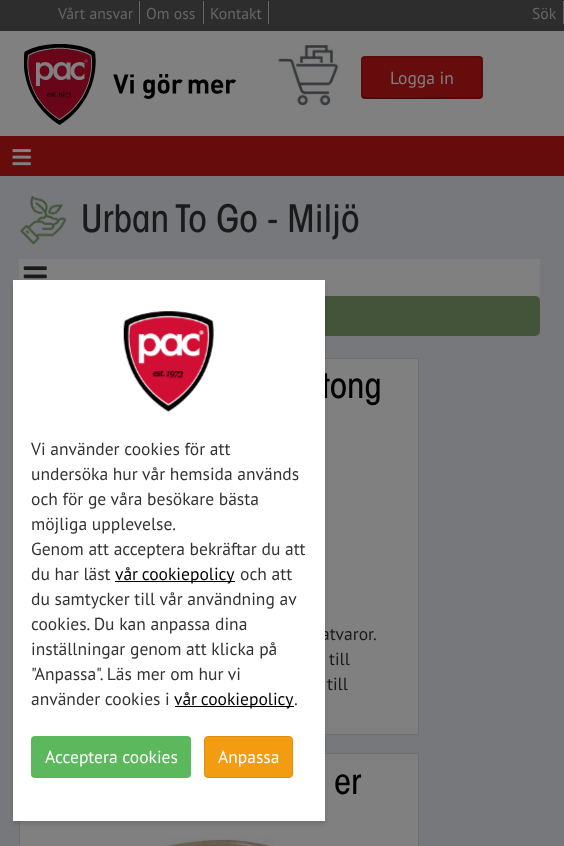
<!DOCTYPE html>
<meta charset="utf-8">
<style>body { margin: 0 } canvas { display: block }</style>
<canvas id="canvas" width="564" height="846"></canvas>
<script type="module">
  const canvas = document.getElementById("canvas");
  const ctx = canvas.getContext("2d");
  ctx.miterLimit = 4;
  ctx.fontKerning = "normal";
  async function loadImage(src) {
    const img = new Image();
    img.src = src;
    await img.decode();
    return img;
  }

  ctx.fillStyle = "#76787b";
  ctx.fillRect(0, 0, 564, 846);
  ctx.fillStyle = "#2e2d2d";
  ctx.fillRect(0, 0, 564, 31);
  ctx.fillStyle = "#666666";
  ctx.fillRect(139, 1, 1, 23);
  ctx.font = "15.75px PT Sans";
  ctx.fillText("Vårt ansvar", 58, 19);
  ctx.fillRect(203, 1, 1, 23);
  ctx.fillText("Om oss", 146, 19);
  ctx.fillRect(268, 1, 1, 23);
  ctx.fillText("Kontakt", 210, 19);
  ctx.fillRect(563, 1, 1, 23);
  ctx.fillText("Sök", 532, 19);
  ctx.fillStyle = "#808080";
  ctx.fillRect(0, 31, 564, 105);
  ctx.drawImage(await loadImage("img1.png"), 24, 44, 212, 81);
  ctx.drawImage(await loadImage("img2.png"), 278, 45, 61, 61);
  ctx.fillStyle = "#670c0d";
  ctx.beginPath();
  ctx.roundRect(361, 56, 122, 43, 4);
  ctx.fill();
  ctx.beginPath();
  ctx.moveTo(481, 97);
  ctx.lineTo(479, 98);
  ctx.lineTo(460, 98);
  ctx.bezierCurveTo(450, 98, 365.5, 99, 363.5, 97.5);
  ctx.lineTo(363, 97);
  ctx.strokeStyle = "#410a0a";
  ctx.lineWidth = 1.2;
  ctx.stroke();
  ctx.beginPath();
  ctx.moveTo(363, 97);
  ctx.bezierCurveTo(360.5, 95, 362, 86, 362, 83.5);
  ctx.lineTo(362, 66);
  ctx.bezierCurveTo(362, 63.5, 360.5, 57, 365, 57);
  ctx.lineTo(460, 57);
  ctx.bezierCurveTo(486.5, 57, 482, 52, 482, 77.5);
  ctx.lineTo(482, 89);
  ctx.bezierCurveTo(482, 90.5, 483, 95.5, 481, 97);
  ctx.strokeStyle = "#4f0c0c";
  ctx.stroke();
  ctx.font = "17.5px PT Sans";
  ctx.fillStyle = "#808080";
  ctx.fillText("Logga in", 390, 84);
  ctx.fillStyle = "#670c0d";
  ctx.fillRect(0, 136, 564, 40);
  ctx.drawImage(await loadImage("img3.png"), 12, 149, 19, 17);
  ctx.drawImage(await loadImage("img4.png"), 20, 195, 47, 50);
  ctx.font = "500 37.5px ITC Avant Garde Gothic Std";
  ctx.fillStyle = "#1a1a1a";
  ctx.fillText("Urban To Go - Miljö", 81, 232);
  ctx.fillStyle = "#808080";
  ctx.fillRect(19, 259, 521, 37);
  ctx.drawImage(await loadImage("img5.png"), 23, 266, 24, 13);
  ctx.fillStyle = "#44543a";
  ctx.beginPath();
  ctx.roundRect(19, 296, 521, 40, 5);
  ctx.fill();
  ctx.fillStyle = "#808080";
  ctx.fillRect(325, 359, 93, 375);
  ctx.strokeStyle = "#6f6f6f";
  ctx.lineWidth = 1;
  ctx.strokeRect(19.5, 358.5, 399, 376);
  ctx.font = "500 35px ITC Avant Garde Gothic Std";
  ctx.fillStyle = "#000000";
  ctx.fillText("tong", 321, 398);
  ctx.font = "17.5px PT Sans";
  ctx.fillStyle = "#1a1a1a";
  ctx.fillText("atvaror.", 321, 640);
  ctx.fillText("till", 329, 665);
  ctx.fillText("till", 327, 690);
  ctx.fillStyle = "#808080";
  ctx.beginPath();
  ctx.rect(19.5, 753.5, 399, 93);
  ctx.fill();
  ctx.stroke();
  ctx.font = "500 35px ITC Avant Garde Gothic Std";
  ctx.fillStyle = "#000000";
  ctx.fillText("er", 334, 794);
  ctx.drawImage(await loadImage("img6.png"), 164, 837, 111, 9);
  ctx.fillStyle = "rgba(0, 0, 0, 0.12)";
  ctx.filter = "blur(2px)";
  ctx.beginPath();
  ctx.rect(13, 283, 312, 541);
  ctx.fill();
  ctx.filter = "none";
  ctx.fillStyle = "#ffffff";
  ctx.fillRect(13, 280, 312, 541);
  ctx.drawImage(await loadImage("img7.png"), 123, 311, 91, 101);
  ctx.font = "17.5px PT Sans";
  ctx.fillStyle = "#333333";
  ctx.fillText("Vi använder cookies för att", 31, 455);
  ctx.fillText("undersöka hur vår hemsida används", 31, 480);
  ctx.fillText("och för ge våra besökare bästa", 31, 505);
  ctx.fillText("möjliga upplevelse.", 31, 530);
  ctx.fillText("Genom att acceptera bekräftar du att", 31, 555);
  ctx.fillText("du har läst", 31, 580);
  ctx.fillStyle = "#000000";
  ctx.fillRect(115, 581, 120, 1);
  ctx.wordSpacing = "-1px";
  ctx.fillText("vår cookiepolicy", 115, 580);
  ctx.wordSpacing = "0px";
  ctx.fillStyle = "#333333";
  ctx.fillText("och att", 240, 580);
  ctx.fillText("du samtycker till vår användning av", 31, 605);
  ctx.fillText("cookies. Du kan anpassa dina", 31, 630);
  ctx.fillText("inställningar genom att klicka på", 31, 655);
  ctx.fillText("\"Anpassa\". Läs mer om hur vi", 31, 680);
  ctx.fillText("använder cookies i", 31, 705);
  ctx.fillStyle = "#000000";
  ctx.fillRect(175, 706, 119, 1);
  ctx.wordSpacing = "-1px";
  ctx.fillText("vår cookiepolicy", 174, 705);
  ctx.wordSpacing = "0px";
  ctx.fillStyle = "#333333";
  ctx.fillText(".", 294, 705);
  ctx.fillStyle = "#5cb85c";
  ctx.beginPath();
  ctx.roundRect(31, 736, 160, 42, 4);
  ctx.fill();
  ctx.fillStyle = "#ffffff";
  ctx.fillText("Acceptera cookies", 45, 763);
  ctx.fillStyle = "#f39c12";
  ctx.beginPath();
  ctx.roundRect(204.5, 736.5, 88, 41, 3.5);
  ctx.fill();
  ctx.strokeStyle = "#e08e0b";
  ctx.stroke();
  ctx.fillStyle = "#ffffff";
  ctx.fillText("Anpassa", 218, 763);
</script>
